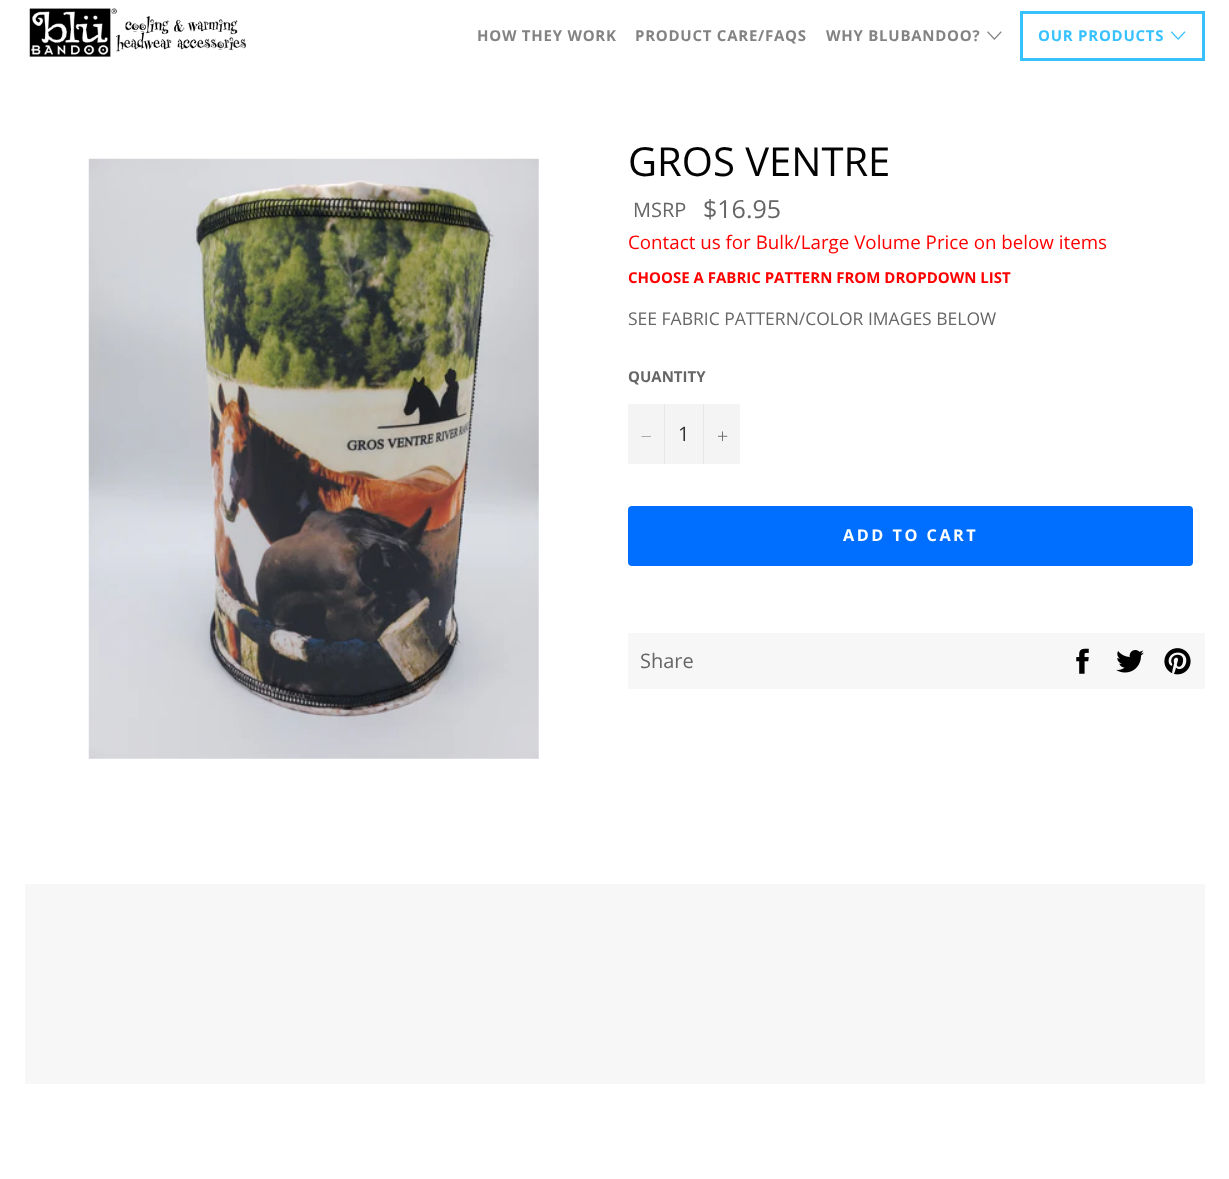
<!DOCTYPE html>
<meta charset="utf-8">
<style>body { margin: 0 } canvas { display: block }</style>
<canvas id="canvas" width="1229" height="1179"></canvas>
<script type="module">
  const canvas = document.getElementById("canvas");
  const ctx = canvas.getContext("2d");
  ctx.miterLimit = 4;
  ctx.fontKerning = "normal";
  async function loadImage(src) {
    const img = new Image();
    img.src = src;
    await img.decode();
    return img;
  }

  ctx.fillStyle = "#ffffff";
  ctx.fillRect(0, 0, 1229, 1179);
  ctx.drawImage(await loadImage("img1.png"), 29, 8, 217, 49);
  ctx.letterSpacing = "0.75px";
  ctx.font = "bold 15px Open Sans";
  ctx.fillStyle = "#838383";
  ctx.fillText("HOW THEY WORK", 477, 41);
  ctx.fillText("PRODUCT CARE/FAQS", 635, 41);
  ctx.fillText("WHY BLUBANDOO?", 826, 41);
  ctx.drawImage(await loadImage("img2.png"), 987, 31, 15, 9);
  ctx.strokeStyle = "#37c1ff";
  ctx.lineWidth = 3;
  ctx.strokeRect(1021.5, 12.5, 182, 47);
  ctx.fillStyle = "#37c1ff";
  ctx.fillText("OUR PRODUCTS", 1038, 41);
  ctx.drawImage(await loadImage("img3.png"), 1170, 31, 16, 9);
  ctx.drawImage(await loadImage("img4.png"), 88, 158, 451, 601);
  ctx.letterSpacing = "0px";
  ctx.font = "40px Open Sans";
  ctx.fillStyle = "#030303";
  ctx.fillText("GROS VENTRE", 628, 176);
  ctx.font = "20px Open Sans";
  ctx.fillStyle = "#666666";
  ctx.fillText("MSRP", 633, 217);
  ctx.font = "25px Open Sans";
  ctx.fillText("$16.95", 703, 218);
  ctx.font = "18.75px Open Sans";
  ctx.fillStyle = "#ff0000";
  ctx.fillText("Contact us for Bulk/Large Volume Price on below items", 628, 249);
  ctx.font = "bold 15px Open Sans";
  ctx.fillText("CHOOSE A FABRIC PATTERN FROM DROPDOWN LIST", 628, 283);
  ctx.font = "17.5px Open Sans";
  ctx.fillStyle = "#666666";
  ctx.fillText("SEE FABRIC PATTERN/COLOR IMAGES BELOW", 628, 325);
  ctx.font = "bold 15px Open Sans";
  ctx.fillText("QUANTITY", 628, 382);
  ctx.fillStyle = "#f4f4f4";
  ctx.fillRect(628, 404, 112, 60);
  ctx.fillStyle = "#e7e7e7";
  ctx.fillRect(664, 404, 1, 60);
  ctx.fillStyle = "#666666";
  ctx.beginPath();
  ctx.moveTo(651, 436);
  ctx.lineTo(651, 436.5);
  ctx.lineTo(641.5, 436.5);
  ctx.lineTo(641.5, 436);
  ctx.closePath();
  ctx.fill("evenodd");
  ctx.font = "20px Open Sans";
  ctx.fillStyle = "#333333";
  ctx.fillText("1", 678, 441);
  ctx.fillStyle = "#e7e7e7";
  ctx.fillRect(703, 404, 1, 60);
  ctx.drawImage(await loadImage("img5.png"), 718, 431, 10, 10);
  ctx.fillStyle = "#006eff";
  ctx.beginPath();
  ctx.roundRect(628, 506, 565, 60, 4);
  ctx.fill();
  ctx.letterSpacing = "2.5px";
  ctx.font = "bold 16.25px Open Sans";
  ctx.fillStyle = "#ffffff";
  ctx.fillText("ADD TO CART", 843, 541);
  ctx.fillStyle = "#f7f7f7";
  ctx.fillRect(628, 633, 577, 56);
  ctx.letterSpacing = "0px";
  ctx.font = "20px Open Sans";
  ctx.fillStyle = "#666666";
  ctx.fillText("Share", 640, 668);
  ctx.drawImage(await loadImage("img6.png"), 1076, 648, 13, 26);
  ctx.drawImage(await loadImage("img7.png"), 1116, 650, 28, 23);
  ctx.drawImage(await loadImage("img8.png"), 1164, 648, 27, 27);
  ctx.fillStyle = "#f7f7f7";
  ctx.fillRect(25, 884, 1180, 200);
</script>
